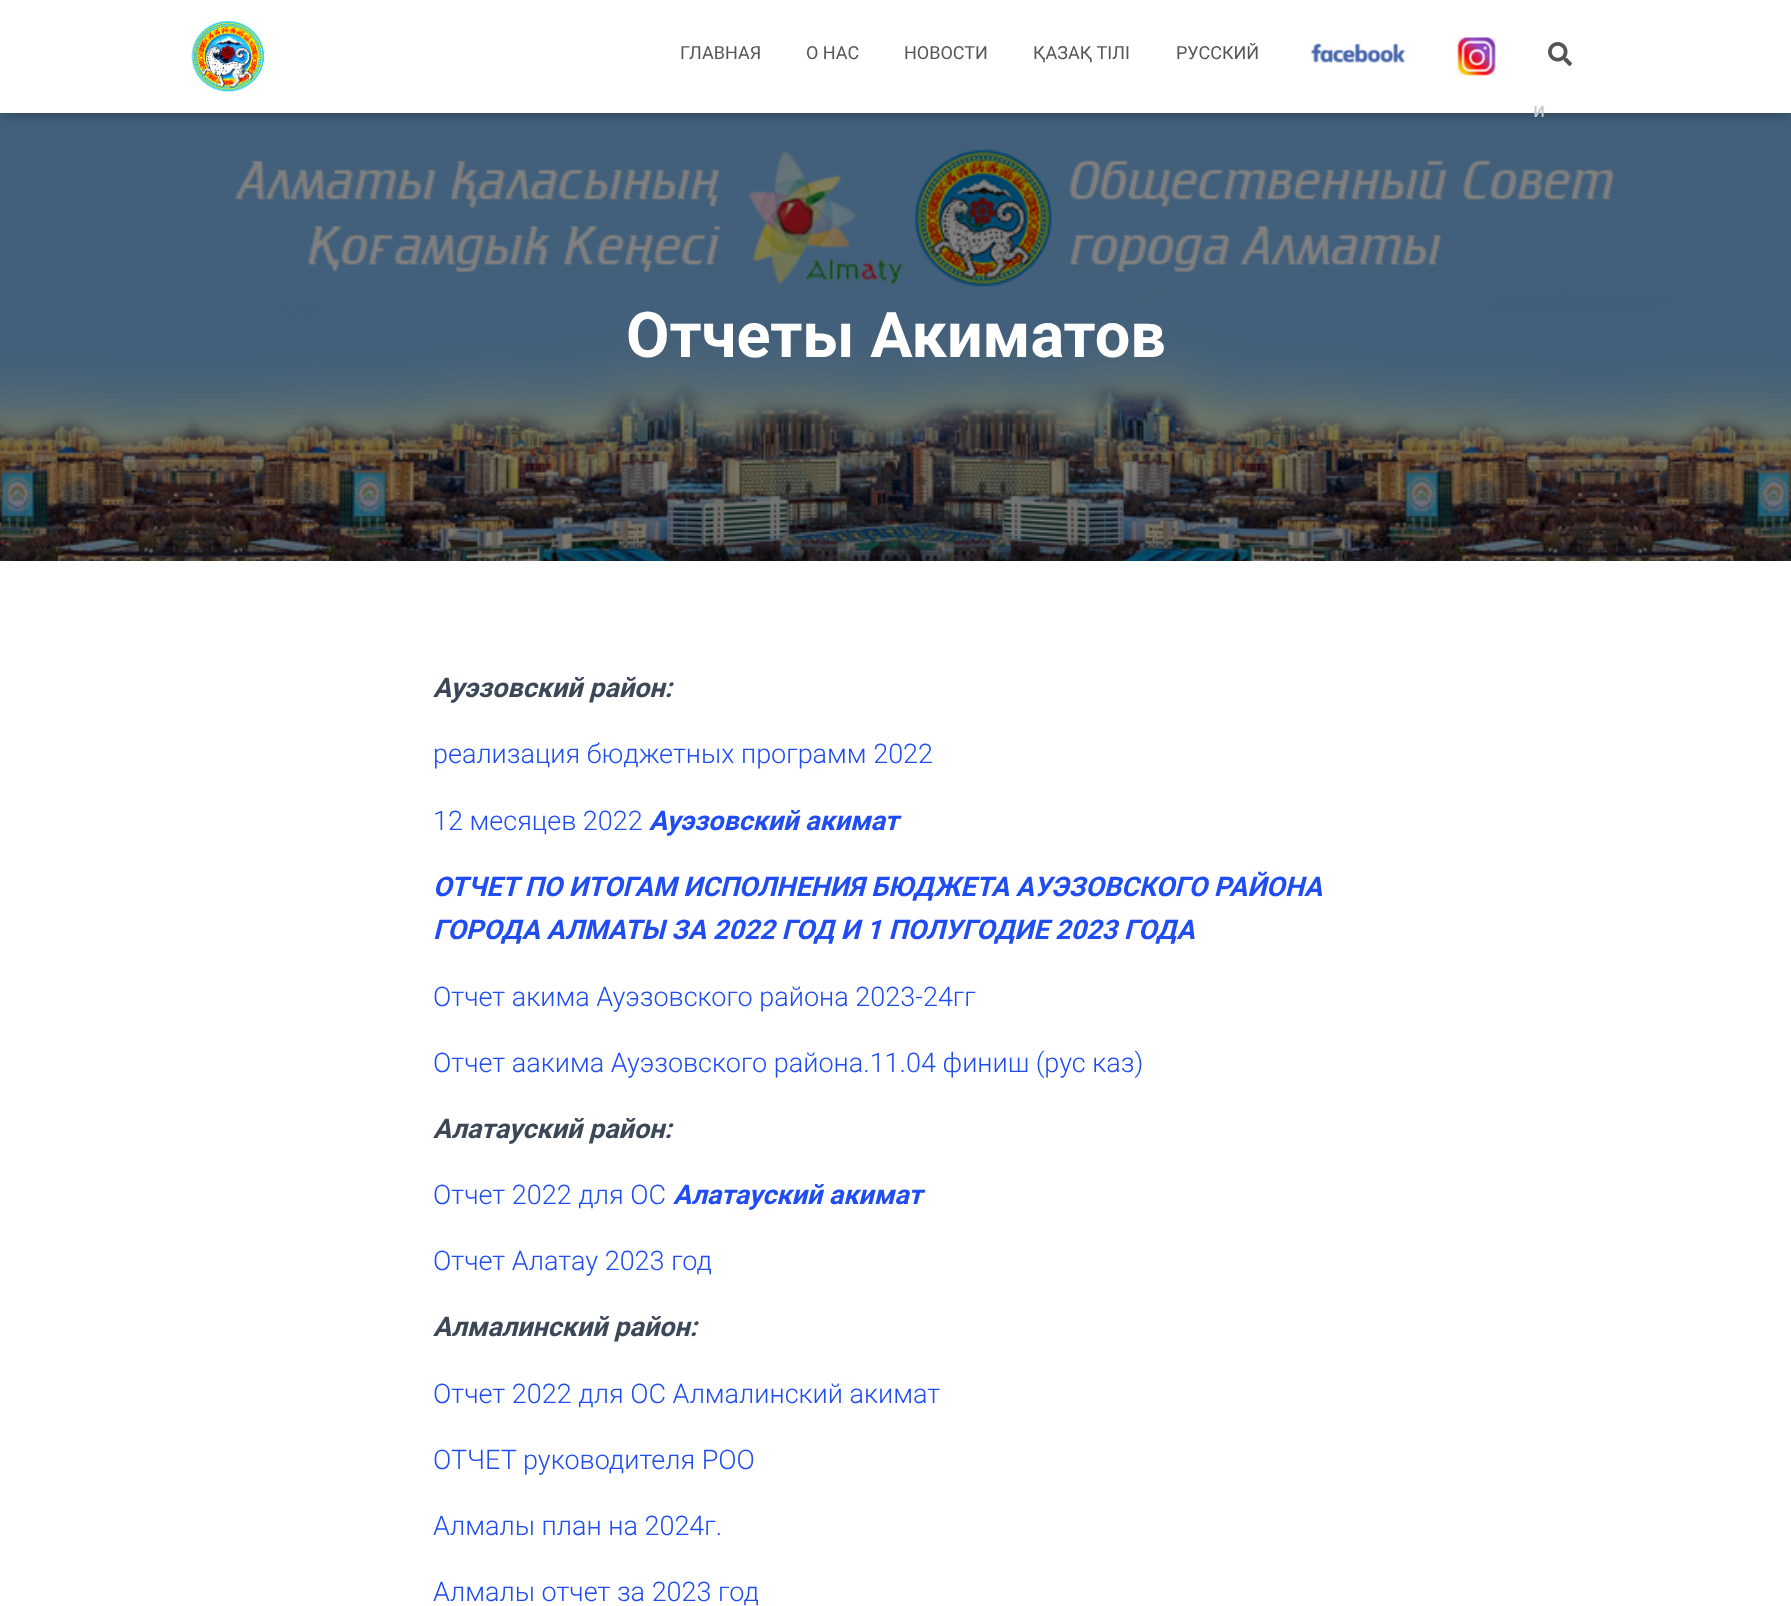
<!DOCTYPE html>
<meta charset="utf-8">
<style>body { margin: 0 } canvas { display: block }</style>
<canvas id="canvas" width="1791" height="1606"></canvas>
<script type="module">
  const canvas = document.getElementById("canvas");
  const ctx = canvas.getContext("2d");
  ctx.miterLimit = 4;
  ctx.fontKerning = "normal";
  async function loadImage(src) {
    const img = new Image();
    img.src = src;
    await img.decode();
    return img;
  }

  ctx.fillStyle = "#ffffff";
  ctx.fillRect(0, 0, 1791, 1606);
  ctx.drawImage(await loadImage("img5.png"), 0, 113, 1791, 448);
  ctx.fillStyle = "rgba(0, 0, 0, 0.1)";
  ctx.filter = "blur(4px)";
  ctx.beginPath();
  ctx.rect(3, 9, 1785, 107);
  ctx.fill();
  ctx.filter = "none";
  ctx.fillStyle = "rgba(0, 0, 0, 0.12)";
  ctx.filter = "blur(7.5px)";
  ctx.beginPath();
  ctx.rect(0, 2, 1791, 112);
  ctx.fill();
  ctx.filter = "none";
  ctx.fillStyle = "rgba(0, 0, 0, 0.42)";
  ctx.filter = "blur(7.5px)";
  ctx.beginPath();
  ctx.rect(9, 11, 1773, 94);
  ctx.fill();
  ctx.filter = "none";
  ctx.fillStyle = "#ffffff";
  ctx.fillRect(0, 0, 1791, 113);
  ctx.drawImage(await loadImage("img1.png"), 191, 21, 74, 71);
  ctx.font = "18px Roboto";
  ctx.fillStyle = "#555555";
  ctx.fillText("ГЛАВНАЯ", 680, 59);
  ctx.fillText("О НАС", 806, 59);
  ctx.fillText("НОВОСТИ", 904, 59);
  ctx.fillText("ҚАЗАҚ ТІЛІ", 1033, 59);
  ctx.fillText("РУССКИЙ", 1176, 59);
  ctx.drawImage(await loadImage("img2.png"), 1310, 43, 96, 20);
  ctx.drawImage(await loadImage("img3.png"), 1457, 37, 39, 39);
  ctx.drawImage(await loadImage("img4.png"), 1548, 42, 24, 24);
  ctx.font = "21px Roboto";
  ctx.fillStyle = "#c0c8d0";
  ctx.fillText("и", 1533, 117);
  ctx.font = "bold 63px Roboto";
  ctx.fillStyle = "#ffffff";
  ctx.fillText("Отчеты Акиматов", 626, 357);
  ctx.font = "italic bold 27px Roboto";
  ctx.fillStyle = "#3c4858";
  ctx.fillText("Ауэзовский район:", 433, 697);
  ctx.font = "300 27px Roboto";
  ctx.fillStyle = "#1f4df2";
  ctx.fillText("реализация бюджетных программ 2022", 433, 763);
  ctx.fillText("12 месяцев 2022", 433, 830);
  ctx.font = "italic bold 27px Roboto";
  ctx.fillText("Ауэзовский акимат", 649, 830);
  ctx.fillText("ОТЧЕТ ПО ИТОГАМ ИСПОЛНЕНИЯ БЮДЖЕТА АУЭЗОВСКОГО РАЙОНА", 433, 896);
  ctx.fillText("ГОРОДА АЛМАТЫ ЗА 2022 ГОД И 1 ПОЛУГОДИЕ 2023 ГОДА", 433, 939);
  ctx.font = "300 27px Roboto";
  ctx.fillText("Отчет акима Ауэзовского района 2023-24гг", 433, 1006);
  ctx.fillText("Отчет аакима Ауэзовского района.11.04 финиш (рус каз)", 433, 1072);
  ctx.font = "italic bold 27px Roboto";
  ctx.fillStyle = "#3c4858";
  ctx.fillText("Алатауский район:", 433, 1138);
  ctx.font = "300 27px Roboto";
  ctx.fillStyle = "#1f4df2";
  ctx.fillText("Отчет 2022 для ОС", 433, 1204);
  ctx.font = "italic bold 27px Roboto";
  ctx.fillText("Алатауский акимат", 673, 1204);
  ctx.font = "300 27px Roboto";
  ctx.fillText("Отчет Алатау 2023 год", 433, 1270);
  ctx.font = "italic bold 27px Roboto";
  ctx.fillStyle = "#3c4858";
  ctx.fillText("Алмалинский район:", 433, 1336);
  ctx.font = "300 27px Roboto";
  ctx.fillStyle = "#1f4df2";
  ctx.fillText("Отчет 2022 для ОС Алмалинский акимат", 433, 1403);
  ctx.fillText("ОТЧЕТ", 433, 1469);
  ctx.fillText("руководителя РОО", 523, 1469);
  ctx.fillText("Алмалы план на 2024г.", 433, 1535);
  ctx.fillText("Алмалы отчет за 2023 год", 433, 1601);
</script>
